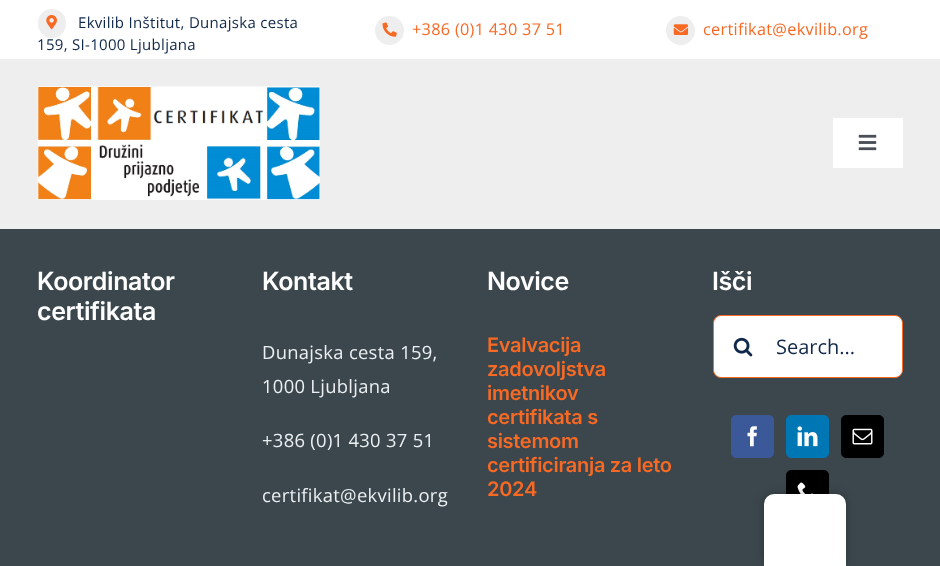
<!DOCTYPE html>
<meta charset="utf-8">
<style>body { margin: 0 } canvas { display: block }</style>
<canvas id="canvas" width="940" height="566"></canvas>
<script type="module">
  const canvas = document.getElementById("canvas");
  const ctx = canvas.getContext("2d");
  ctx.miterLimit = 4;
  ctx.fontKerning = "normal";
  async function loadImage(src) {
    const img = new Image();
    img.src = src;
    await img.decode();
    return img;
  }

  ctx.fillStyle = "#eeeeee";
  ctx.fillRect(0, 0, 940, 566);
  ctx.fillStyle = "#ffffff";
  ctx.fillRect(0, 0, 940, 59);
  ctx.fillStyle = "#eeeeee";
  ctx.beginPath();
  ctx.roundRect(38, 9, 28, 29, 14);
  ctx.fill();
  ctx.drawImage(await loadImage("img1.png"), 46, 15, 11, 15);
  ctx.letterSpacing = "0.3px";
  ctx.font = "15px Open Sans";
  ctx.fillStyle = "#10284a";
  ctx.fillText("Ekvilib Inštitut, Dunajska cesta", 78, 28);
  ctx.fillText("159, SI-1000 Ljubljana", 37, 50);
  ctx.fillStyle = "#eeeeee";
  ctx.beginPath();
  ctx.arc(389.5, 30.5, 14.5, 0, Math.PI * 2);
  ctx.fill();
  ctx.drawImage(await loadImage("img2.png"), 382, 22, 15, 15);
  ctx.font = "16.25px Open Sans";
  ctx.fillStyle = "#f86924";
  ctx.fillText("+386 (0)1 430 37 51", 412, 35);
  ctx.fillStyle = "#eeeeee";
  ctx.beginPath();
  ctx.arc(680.5, 30.5, 14.5, 0, Math.PI * 2);
  ctx.fill();
  ctx.drawImage(await loadImage("img3.png"), 673, 24, 16, 11);
  ctx.fillStyle = "#f86924";
  ctx.fillText("certifikat@ekvilib.org", 703, 35);
  ctx.drawImage(await loadImage("img4.png"), 37, 86, 283, 114);
  ctx.fillStyle = "#ffffff";
  ctx.fillRect(833, 118, 70, 50);
  ctx.drawImage(await loadImage("img5.png"), 858, 134, 19, 17);
  ctx.fillStyle = "#3b474d";
  ctx.fillRect(0, 229, 940, 337);
  ctx.letterSpacing = "-0.4px";
  ctx.font = "600 25px Inter";
  ctx.fillStyle = "#ffffff";
  ctx.fillText("Koordinator", 37, 290);
  ctx.fillText("certifikata", 37, 320);
  ctx.fillText("Kontakt", 262, 290);
  ctx.letterSpacing = "0.3px";
  ctx.font = "18.4px Open Sans";
  ctx.fillStyle = "#ebeff2";
  ctx.fillText("Dunajska cesta 159,", 262, 359);
  ctx.fillText("1000 Ljubljana", 262, 393);
  ctx.fillText("+386 (0)1 430 37 51", 262, 447);
  ctx.fillText("certifikat@ekvilib.org", 262, 502);
  ctx.letterSpacing = "-0.4px";
  ctx.font = "600 25px Inter";
  ctx.fillStyle = "#ffffff";
  ctx.fillText("Novice", 487, 290);
  ctx.letterSpacing = "-0.3px";
  ctx.font = "600 20px Inter";
  ctx.fillStyle = "#f86924";
  ctx.fillText("Evalvacija", 487, 352);
  ctx.fillText("zadovoljstva", 487, 376);
  ctx.fillText("imetnikov", 487, 400);
  ctx.fillText("certifikata s", 487, 424);
  ctx.fillText("sistemom", 487, 448);
  ctx.fillText("certificiranja za leto", 487, 472);
  ctx.fillText("2024", 487, 496);
  ctx.letterSpacing = "-0.4px";
  ctx.font = "600 25px Inter";
  ctx.fillStyle = "#ffffff";
  ctx.fillText("Išči", 712, 290);
  ctx.beginPath();
  ctx.roundRect(713.5, 315.5, 189, 62, 7.5);
  ctx.fill();
  ctx.strokeStyle = "#f86924";
  ctx.stroke();
  ctx.drawImage(await loadImage("img6.png"), 733, 337, 20, 20);
  ctx.letterSpacing = "0px";
  ctx.font = "20px Open Sans";
  ctx.fillStyle = "#10284a";
  ctx.fillText("Search...", 776, 354);
  ctx.fillStyle = "#3b5998";
  ctx.beginPath();
  ctx.roundRect(731.5, 415.5, 42, 42, 4.5);
  ctx.fill();
  ctx.strokeStyle = "#3b5998";
  ctx.stroke();
  ctx.drawImage(await loadImage("img7.png"), 747, 426, 10, 21);
  ctx.fillStyle = "#0077b5";
  ctx.beginPath();
  ctx.roundRect(786.5, 415.5, 42, 42, 4.5);
  ctx.fill();
  ctx.strokeStyle = "#0077b5";
  ctx.stroke();
  ctx.drawImage(await loadImage("img8.png"), 797, 426, 21, 21);
  ctx.fillStyle = "#000000";
  ctx.beginPath();
  ctx.roundRect(841.5, 415.5, 42, 42, 4.5);
  ctx.fill();
  ctx.strokeStyle = "#000000";
  ctx.stroke();
  ctx.drawImage(await loadImage("img9.png"), 852, 428, 21, 17);
  ctx.beginPath();
  ctx.roundRect(786.5, 470.5, 42, 42, 4.5);
  ctx.fill();
  ctx.stroke();
  ctx.drawImage(await loadImage("img10.png"), 797, 482, 16, 12);
  ctx.fillStyle = "rgba(0, 0, 0, 0.25)";
  ctx.filter = "blur(5px)";
  ctx.beginPath();
  ctx.roundRect(764, 494, 82, 72, 10);
  ctx.fill();
  ctx.filter = "none";
  ctx.fillStyle = "#ffffff";
  ctx.beginPath();
  ctx.roundRect(764, 494, 82, 72, [10, 10, 0, 0]);
  ctx.fill();
</script>
